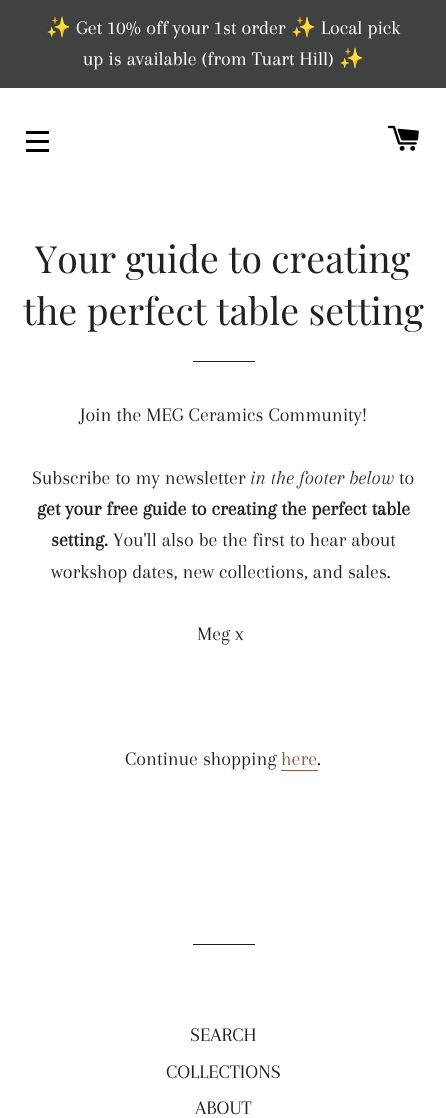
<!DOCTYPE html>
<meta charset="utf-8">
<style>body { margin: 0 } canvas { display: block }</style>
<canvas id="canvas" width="446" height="1118"></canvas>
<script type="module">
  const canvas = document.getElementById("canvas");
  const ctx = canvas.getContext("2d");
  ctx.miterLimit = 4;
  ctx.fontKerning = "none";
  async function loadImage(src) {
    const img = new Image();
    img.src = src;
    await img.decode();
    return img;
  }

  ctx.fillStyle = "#ffffff";
  ctx.fillRect(0, 0, 446, 1118);
  ctx.fillStyle = "#404242";
  ctx.fillRect(0, 0, 446, 88);
  ctx.font = "20px Noto Color Emoji";
  ctx.fillStyle = "#ffffff";
  ctx.fillText("✨", 46, 34);
  ctx.font = "20px Arapey";
  ctx.fillText("Get 10% off your 1st order", 76, 34);
  ctx.font = "20px Noto Color Emoji";
  ctx.fillText("✨", 291, 34);
  ctx.font = "20px Arapey";
  ctx.fillText("Local pick", 321, 34);
  ctx.fillText("up is available (from Tuart Hill)", 83, 65);
  ctx.font = "20px Noto Color Emoji";
  ctx.fillText("✨", 339, 65);
  ctx.fillStyle = "#000000";
  ctx.fillRect(26, 131, 23, 3);
  ctx.fillRect(26, 140, 23, 3);
  ctx.fillRect(26, 149, 23, 3);
  ctx.drawImage(await loadImage("img1.png"), 387, 125, 32, 26);
  ctx.font = "37.5px Playfair Display";
  ctx.fillStyle = "#1f2021";
  ctx.fillText("Your guide to creating", 35, 273);
  ctx.fillText("the perfect table setting", 23, 325);
  ctx.fillRect(193, 361, 62, 1);
  ctx.font = "20px Arapey";
  ctx.fillText("Join the MEG Ceramics Community!", 80, 421);
  ctx.fillText("Subscribe to my newsletter", 32, 484);
  ctx.font = "italic 20px Arapey";
  ctx.fillText("in the footer below", 250, 484);
  ctx.font = "20px Arapey";
  ctx.fillText("to", 399, 484);
  ctx.font = "bold 20px Arapey";
  ctx.fillText("get your free guide to creating the perfect table", 37, 515);
  ctx.fillText("setting.", 51, 546);
  ctx.font = "20px Arapey";
  ctx.fillText("You'll also be the first to hear about", 113, 546);
  ctx.fillText("workshop dates, new collections, and sales.", 51, 578);
  ctx.fillText("Meg x", 197, 640);
  ctx.fillText("Continue shopping", 125, 765);
  ctx.fillStyle = "#8d594b";
  ctx.fillText("here", 281, 765);
  ctx.fillStyle = "#1f2021";
  ctx.fillText(".", 317, 765);
  ctx.fillStyle = "#8d594b";
  ctx.fillRect(281, 770, 37, 1);
  ctx.fillStyle = "#1f2021";
  ctx.fillRect(193, 944, 62, 1);
  ctx.fillText("SEARCH", 190, 1041);
  ctx.fillText("COLLECTIONS", 166, 1078);
  ctx.fillText("ABOUT", 195, 1114);
</script>
